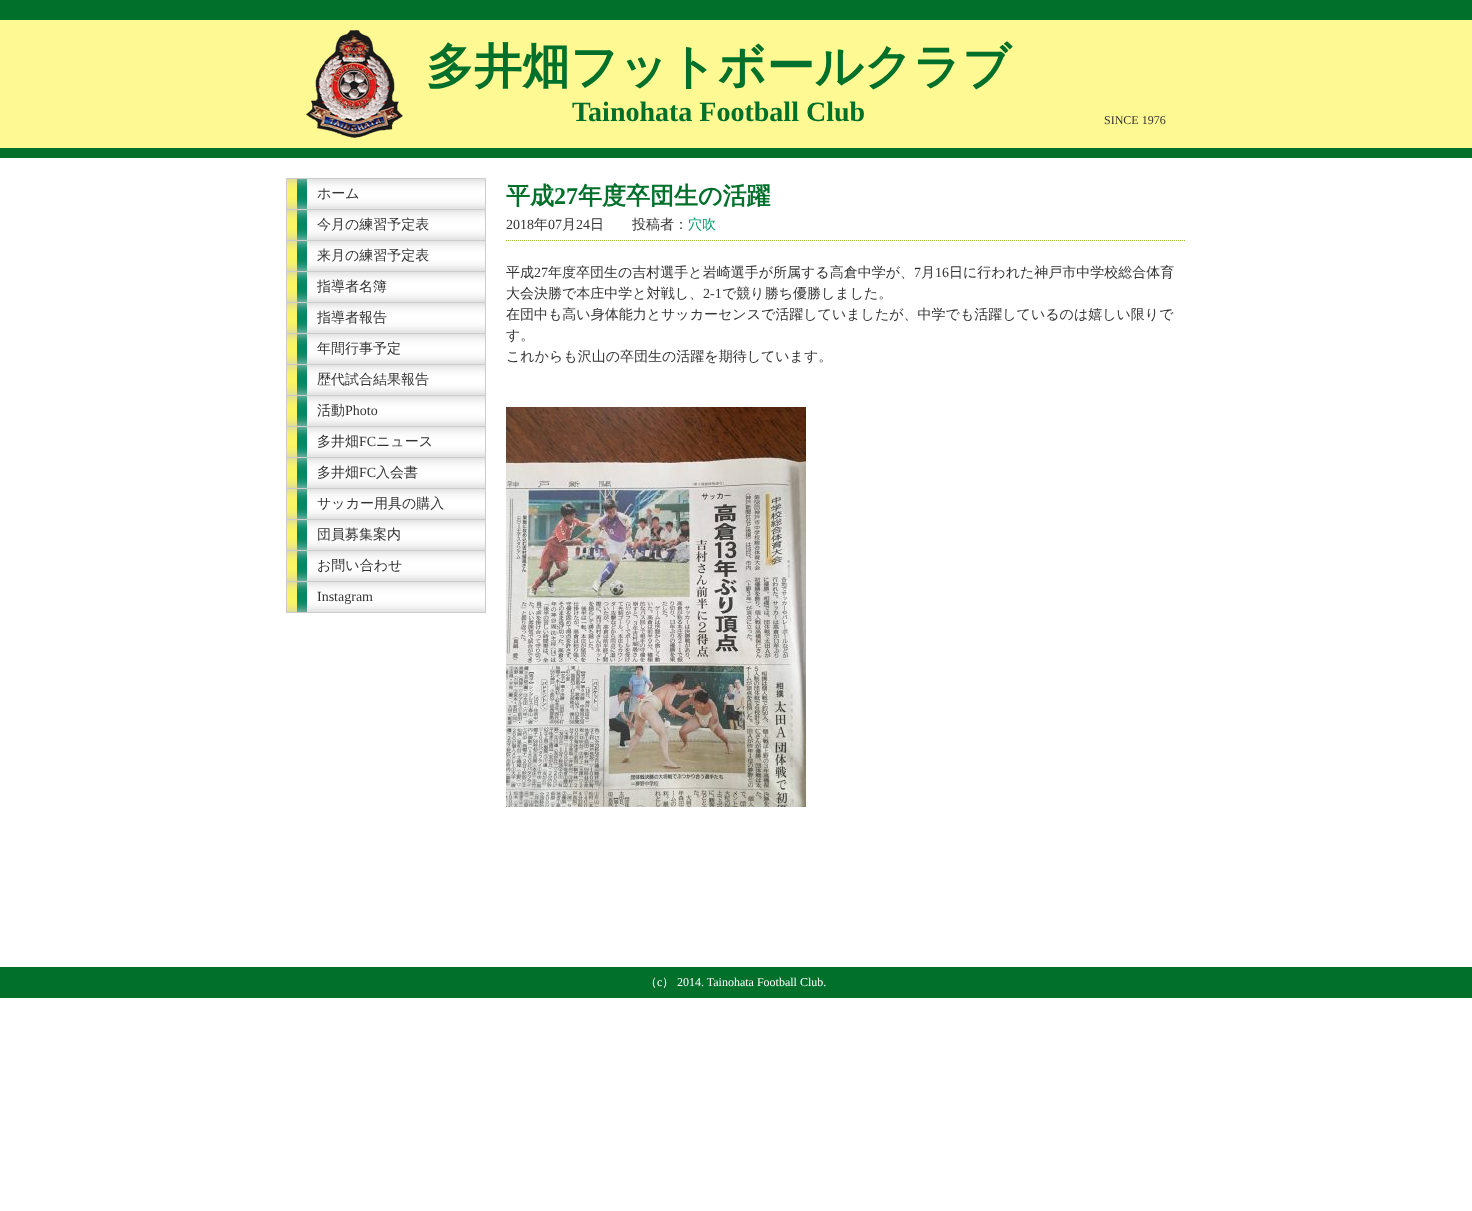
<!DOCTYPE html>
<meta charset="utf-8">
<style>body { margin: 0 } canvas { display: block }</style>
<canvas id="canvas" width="1472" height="1211"></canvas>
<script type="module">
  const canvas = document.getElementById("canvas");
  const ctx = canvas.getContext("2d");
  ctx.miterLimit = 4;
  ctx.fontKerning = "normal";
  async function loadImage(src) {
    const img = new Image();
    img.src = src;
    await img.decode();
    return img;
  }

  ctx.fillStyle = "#ffffff";
  ctx.fillRect(0, 0, 1472, 1211);
  ctx.fillStyle = "#00702a";
  ctx.fillRect(0, 0, 1472, 158);
  ctx.fillStyle = "#fff993";
  ctx.fillRect(0, 20, 1472, 128);
  ctx.drawImage(await loadImage("img1.png"), 306, 30, 97, 108);
  ctx.font = "bold 48px WenQuanYi Zen Hei";
  ctx.fillStyle = "#00702a";
  ctx.fillText("多井畑フットボールクラブ", 426, 83);
  ctx.font = "bold 28px Liberation Serif";
  ctx.fillText("Tainohata Football Club", 572, 121);
  ctx.font = "12px Liberation Serif";
  ctx.fillStyle = "#333333";
  ctx.fillText("SINCE 1976", 1104, 124);
  ctx.fillStyle = "#cccccc";
  ctx.fillRect(286, 178, 200, 1);
  ctx.fillRect(485, 179, 1, 434);
  ctx.fillRect(286, 209, 200, 1);
  ctx.fillRect(286, 179, 1, 31);
  ctx.drawImage(await loadImage("img2.png"), 287, 179, 198, 30);
  ctx.font = "500 14px WenQuanYi Zen Hei";
  ctx.fillStyle = "#333333";
  ctx.fillText("ホーム", 317, 198);
  ctx.fillStyle = "#cccccc";
  ctx.fillRect(286, 240, 200, 1);
  ctx.fillRect(286, 210, 1, 31);
  ctx.drawImage(await loadImage("img2.png"), 287, 210, 198, 30);
  ctx.fillStyle = "#333333";
  ctx.fillText("今月の練習予定表", 317, 229);
  ctx.fillStyle = "#cccccc";
  ctx.fillRect(286, 271, 200, 1);
  ctx.fillRect(286, 241, 1, 31);
  ctx.drawImage(await loadImage("img2.png"), 287, 241, 198, 30);
  ctx.fillStyle = "#333333";
  ctx.fillText("来月の練習予定表", 317, 260);
  ctx.fillStyle = "#cccccc";
  ctx.fillRect(286, 302, 200, 1);
  ctx.fillRect(286, 272, 1, 31);
  ctx.drawImage(await loadImage("img2.png"), 287, 272, 198, 30);
  ctx.fillStyle = "#333333";
  ctx.fillText("指導者名簿", 317, 291);
  ctx.fillStyle = "#cccccc";
  ctx.fillRect(286, 333, 200, 1);
  ctx.fillRect(286, 303, 1, 31);
  ctx.drawImage(await loadImage("img2.png"), 287, 303, 198, 30);
  ctx.fillStyle = "#333333";
  ctx.fillText("指導者報告", 317, 322);
  ctx.fillStyle = "#cccccc";
  ctx.fillRect(286, 364, 200, 1);
  ctx.fillRect(286, 334, 1, 31);
  ctx.drawImage(await loadImage("img2.png"), 287, 334, 198, 30);
  ctx.fillStyle = "#333333";
  ctx.fillText("年間行事予定", 317, 353);
  ctx.fillStyle = "#cccccc";
  ctx.fillRect(286, 395, 200, 1);
  ctx.fillRect(286, 365, 1, 31);
  ctx.drawImage(await loadImage("img2.png"), 287, 365, 198, 30);
  ctx.fillStyle = "#333333";
  ctx.fillText("歴代試合結果報告", 317, 384);
  ctx.fillStyle = "#cccccc";
  ctx.fillRect(286, 426, 200, 1);
  ctx.fillRect(286, 396, 1, 31);
  ctx.drawImage(await loadImage("img2.png"), 287, 396, 198, 30);
  ctx.fillStyle = "#333333";
  ctx.fillText("活動", 317, 415);
  ctx.font = "14px Liberation Serif";
  ctx.fillText("Photo", 345, 415);
  ctx.fillStyle = "#cccccc";
  ctx.fillRect(286, 457, 200, 1);
  ctx.fillRect(286, 427, 1, 31);
  ctx.drawImage(await loadImage("img2.png"), 287, 427, 198, 30);
  ctx.font = "500 14px WenQuanYi Zen Hei";
  ctx.fillStyle = "#333333";
  ctx.fillText("多井畑", 317, 446);
  ctx.font = "14px Liberation Serif";
  ctx.fillText("FC", 359, 446);
  ctx.font = "500 14px WenQuanYi Zen Hei";
  ctx.fillText("ニュース", 376, 446);
  ctx.fillStyle = "#cccccc";
  ctx.fillRect(286, 488, 200, 1);
  ctx.fillRect(286, 458, 1, 31);
  ctx.drawImage(await loadImage("img2.png"), 287, 458, 198, 30);
  ctx.fillStyle = "#333333";
  ctx.fillText("多井畑", 317, 477);
  ctx.font = "14px Liberation Serif";
  ctx.fillText("FC", 359, 477);
  ctx.font = "500 14px WenQuanYi Zen Hei";
  ctx.fillText("入会書", 376, 477);
  ctx.fillStyle = "#cccccc";
  ctx.fillRect(286, 519, 200, 1);
  ctx.fillRect(286, 489, 1, 31);
  ctx.drawImage(await loadImage("img2.png"), 287, 489, 198, 30);
  ctx.fillStyle = "#333333";
  ctx.fillText("サッカー用具の購入", 317, 508);
  ctx.fillStyle = "#cccccc";
  ctx.fillRect(286, 550, 200, 1);
  ctx.fillRect(286, 520, 1, 31);
  ctx.drawImage(await loadImage("img2.png"), 287, 520, 198, 30);
  ctx.fillStyle = "#333333";
  ctx.fillText("団員募集案内", 317, 539);
  ctx.fillStyle = "#cccccc";
  ctx.fillRect(286, 581, 200, 1);
  ctx.fillRect(286, 551, 1, 31);
  ctx.drawImage(await loadImage("img2.png"), 287, 551, 198, 30);
  ctx.fillStyle = "#333333";
  ctx.fillText("お問い合わせ", 317, 570);
  ctx.fillStyle = "#cccccc";
  ctx.fillRect(286, 612, 200, 1);
  ctx.fillRect(286, 582, 1, 31);
  ctx.drawImage(await loadImage("img2.png"), 287, 582, 198, 30);
  ctx.font = "14px Liberation Serif";
  ctx.fillStyle = "#333333";
  ctx.fillText("Instagram", 317, 601);
  ctx.font = "bold 24px WenQuanYi Zen Hei";
  ctx.fillStyle = "#00702a";
  ctx.fillText("平成", 506, 204);
  ctx.font = "bold 24px Liberation Serif";
  ctx.fillText("27", 554, 204);
  ctx.font = "bold 24px WenQuanYi Zen Hei";
  ctx.fillText("年度卒団生の活躍", 578, 204);
  ctx.font = "14px Liberation Serif";
  ctx.fillStyle = "#333333";
  ctx.fillText("2018", 506, 229);
  ctx.font = "500 14px WenQuanYi Zen Hei";
  ctx.fillText("年", 534, 229);
  ctx.font = "14px Liberation Serif";
  ctx.fillText("07", 548, 229);
  ctx.font = "500 14px WenQuanYi Zen Hei";
  ctx.fillText("月", 562, 229);
  ctx.font = "14px Liberation Serif";
  ctx.fillText("24", 576, 229);
  ctx.font = "500 14px WenQuanYi Zen Hei";
  ctx.fillText("日　　投稿者：", 590, 229);
  ctx.fillStyle = "#009966";
  ctx.fillText("穴吹", 688, 229);
  ctx.beginPath();
  ctx.moveTo(506, 240.5);
  ctx.lineTo(1186, 240.5);
  ctx.strokeStyle = "#8dc21f";
  ctx.setLineDash([1, 1]);
  ctx.stroke();
  ctx.fillStyle = "#333333";
  ctx.fillText("平成", 506, 277);
  ctx.font = "14px Liberation Serif";
  ctx.fillText("27", 534, 277);
  ctx.font = "500 14px WenQuanYi Zen Hei";
  ctx.fillText("年度卒団生の吉村選手と岩崎選手が所属する高倉中学が、", 548, 277);
  ctx.font = "14px Liberation Serif";
  ctx.fillText("7", 914, 277);
  ctx.font = "500 14px WenQuanYi Zen Hei";
  ctx.fillText("月", 921, 277);
  ctx.font = "14px Liberation Serif";
  ctx.fillText("16", 935, 277);
  ctx.font = "500 14px WenQuanYi Zen Hei";
  ctx.fillText("日に行われた神戸市中学校総合体育", 949, 277);
  ctx.fillText("大会決勝で本庄中学と対戦し、", 506, 298);
  ctx.font = "14px Liberation Serif";
  ctx.fillText("2-1", 703, 298);
  ctx.font = "500 14px WenQuanYi Zen Hei";
  ctx.fillText("で競り勝ち優勝しました。", 722, 298);
  ctx.fillText("在団中も高い身体能力とサッカーセンスで活躍していましたが、中学でも活躍しているのは嬉しい限りで", 506, 319);
  ctx.fillText("す。", 506, 340);
  ctx.fillText("これからも沢山の卒団生の活躍を期待しています。", 506, 361);
  ctx.drawImage(await loadImage("img3.png"), 506, 407, 300, 400);
  ctx.fillStyle = "#00702a";
  ctx.fillRect(0, 967, 1472, 31);
  ctx.font = "500 12px WenQuanYi Zen Hei";
  ctx.fillStyle = "#ffffff";
  ctx.fillText("（", 645, 986);
  ctx.font = "12px Liberation Serif";
  ctx.fillText("c", 657, 986);
  ctx.font = "500 12px WenQuanYi Zen Hei";
  ctx.fillText("）", 662, 986);
  ctx.font = "12px Liberation Serif";
  ctx.fillText("2014. Tainohata Football Club.", 677, 986);
</script>
